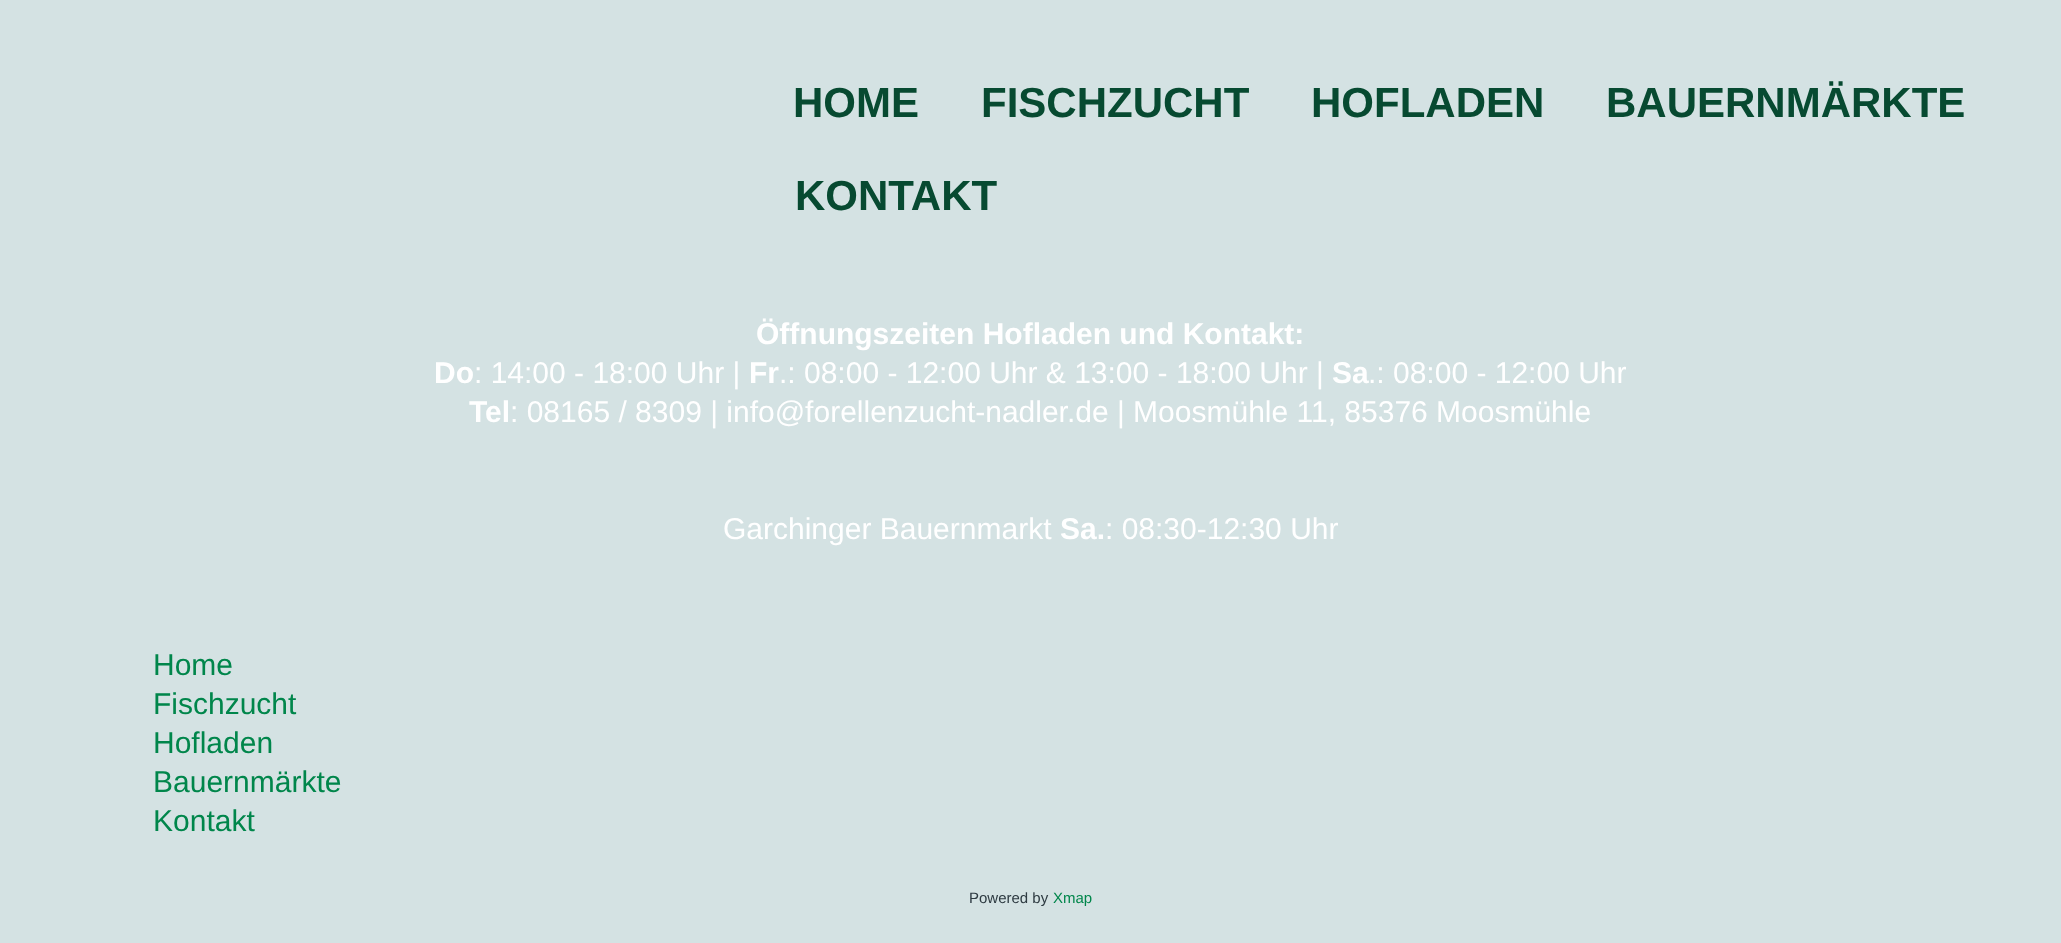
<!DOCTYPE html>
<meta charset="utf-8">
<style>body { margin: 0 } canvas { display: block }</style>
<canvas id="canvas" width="2061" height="943"></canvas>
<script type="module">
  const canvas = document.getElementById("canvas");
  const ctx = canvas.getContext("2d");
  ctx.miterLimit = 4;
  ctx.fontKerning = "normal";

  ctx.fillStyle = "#d4e2e3";
  ctx.fillRect(0, 0, 2061, 943);
  ctx.font = "bold 42px Liberation Sans";
  ctx.fillStyle = "#074a31";
  ctx.fillText("HOME", 793, 117);
  ctx.fillText("FISCHZUCHT", 981, 117);
  ctx.fillText("HOFLADEN", 1311, 117);
  ctx.fillText("BAUERNMÄRKTE", 1606, 117);
  ctx.fillText("KONTAKT", 795, 210);
  ctx.font = "bold 30px Liberation Sans";
  ctx.fillStyle = "#ffffff";
  ctx.fillText("Öffnungszeiten Hofladen und Kontakt:", 756, 344);
  ctx.fillText("Do", 434, 383);
  ctx.font = "30px Liberation Sans";
  ctx.fillText(": 14:00 - 18:00 Uhr |", 474, 383);
  ctx.font = "bold 30px Liberation Sans";
  ctx.fillText("Fr", 749, 383);
  ctx.font = "30px Liberation Sans";
  ctx.fillText(".: 08:00 - 12:00 Uhr & 13:00 - 18:00 Uhr |", 779, 383);
  ctx.font = "bold 30px Liberation Sans";
  ctx.fillText("Sa", 1332, 383);
  ctx.font = "30px Liberation Sans";
  ctx.fillText(".: 08:00 - 12:00 Uhr", 1368, 383);
  ctx.font = "bold 30px Liberation Sans";
  ctx.fillText("Tel", 469, 422);
  ctx.font = "30px Liberation Sans";
  ctx.fillText(": 08165 / 8309 | info@forellenzucht-nadler.de | Moosmühle 11, 85376 Moosmühle", 510, 422);
  ctx.fillText("Garchinger Bauernmarkt", 723, 539);
  ctx.font = "bold 30px Liberation Sans";
  ctx.fillText("Sa.", 1060, 539);
  ctx.font = "30px Liberation Sans";
  ctx.fillText(": 08:30-12:30 Uhr", 1105, 539);
  ctx.fillStyle = "#00864b";
  ctx.fillText("Home", 153, 675);
  ctx.fillText("Fischzucht", 153, 714);
  ctx.fillText("Hofladen", 153, 753);
  ctx.fillText("Bauernmärkte", 153, 792);
  ctx.fillText("Kontakt", 153, 831);
  ctx.font = "15px Liberation Sans";
  ctx.fillStyle = "#2d3a41";
  ctx.fillText("Powered by", 969, 903);
  ctx.fillStyle = "#00864b";
  ctx.fillText("Xmap", 1053, 903);
</script>
